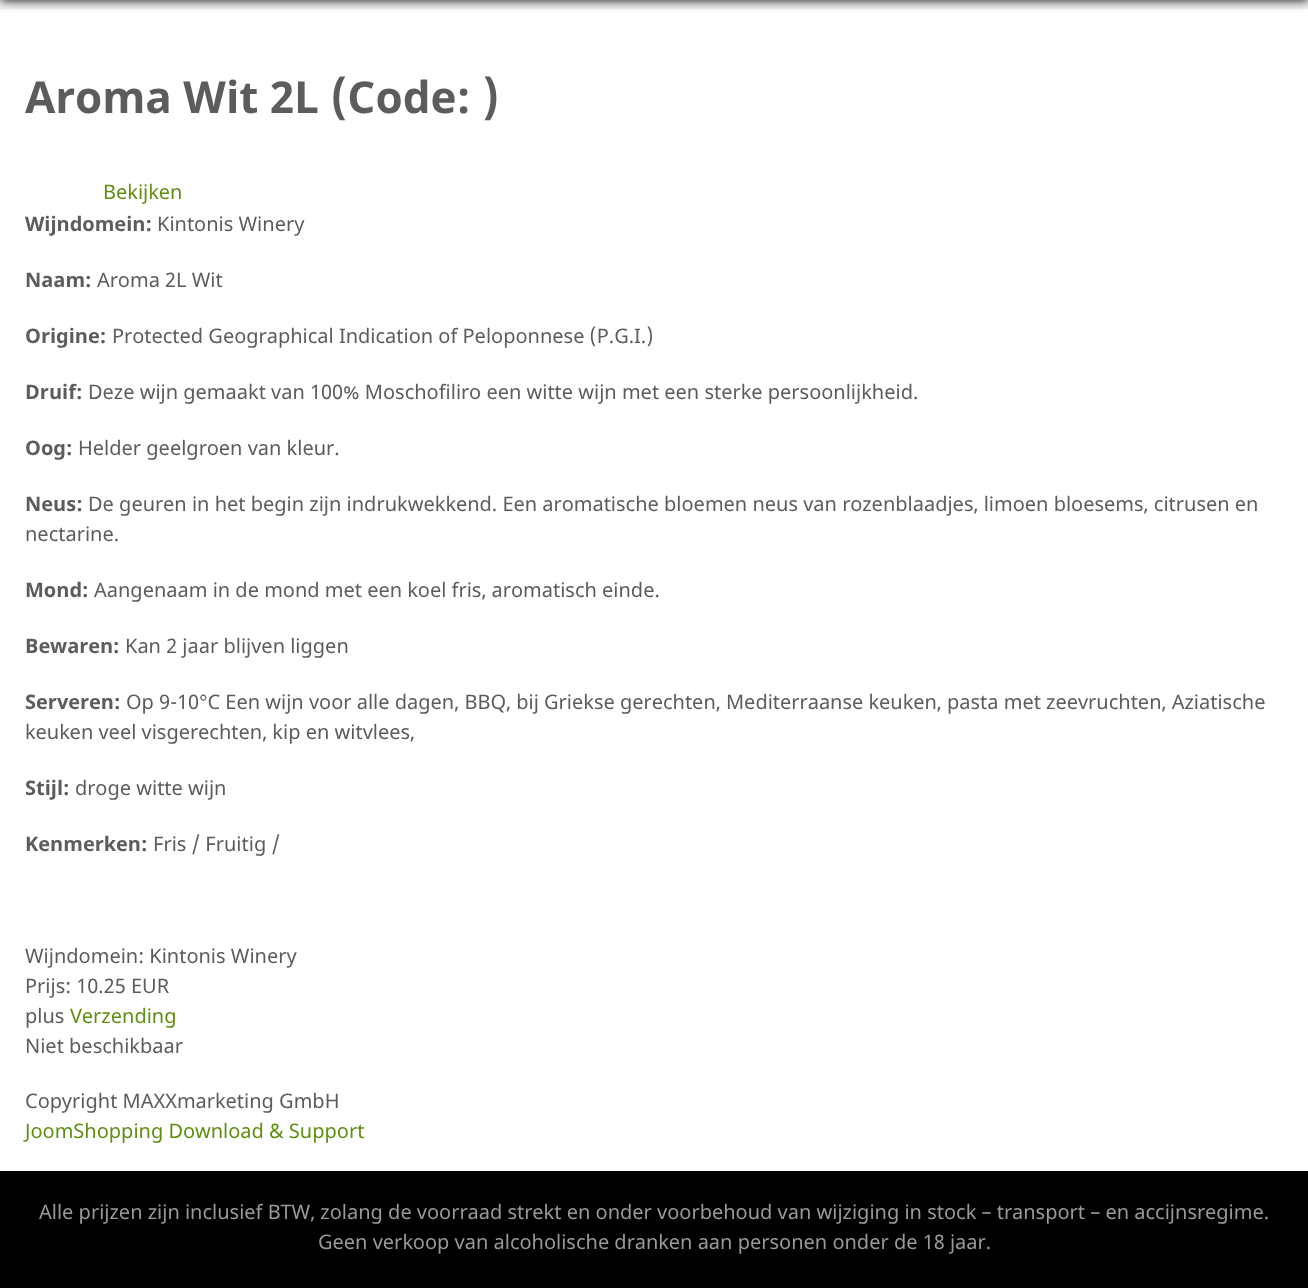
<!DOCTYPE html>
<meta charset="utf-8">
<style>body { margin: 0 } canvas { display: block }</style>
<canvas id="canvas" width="1308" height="1288"></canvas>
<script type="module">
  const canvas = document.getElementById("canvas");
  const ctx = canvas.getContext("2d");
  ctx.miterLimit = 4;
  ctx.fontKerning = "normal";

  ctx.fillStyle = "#ffffff";
  ctx.fillRect(0, 0, 1308, 1288);
  ctx.fillStyle = "#f3f5f7";
  ctx.fillRect(0, 0, 1308, 9);
  ctx.fillStyle = "#000000";
  ctx.filter = "blur(6px)";
  ctx.beginPath();
  ctx.rect(0, -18, 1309, 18);
  ctx.fill();
  ctx.filter = "none";
  ctx.font = "bold 44px Noto Sans";
  ctx.fillStyle = "#5c5c5c";
  ctx.fillText("Aroma Wit 2L (Code: )", 25, 113);
  ctx.font = "20px Noto Sans";
  ctx.fillStyle = "#5f8f11";
  ctx.fillText("Bekijken", 103, 199);
  ctx.font = "bold 20px Noto Sans";
  ctx.fillStyle = "#5c5c5c";
  ctx.fillText("Wijndomein:", 25, 231);
  ctx.font = "20px Noto Sans";
  ctx.fillText("Kintonis Winery", 157, 231);
  ctx.font = "bold 20px Noto Sans";
  ctx.fillText("Naam:", 25, 287);
  ctx.font = "20px Noto Sans";
  ctx.fillText("Aroma 2L Wit", 97, 287);
  ctx.font = "bold 20px Noto Sans";
  ctx.fillText("Origine:", 25, 343);
  ctx.font = "20px Noto Sans";
  ctx.fillText("Protected Geographical Indication of Peloponnese (P.G.I.)", 112, 343);
  ctx.font = "bold 20px Noto Sans";
  ctx.fillText("Druif:", 25, 399);
  ctx.font = "20px Noto Sans";
  ctx.fillText("Deze wijn gemaakt van 100% Moschofiliro een witte wijn met een sterke persoonlijkheid.", 88, 399);
  ctx.font = "bold 20px Noto Sans";
  ctx.fillText("Oog:", 25, 455);
  ctx.font = "20px Noto Sans";
  ctx.fillText("Helder geelgroen van kleur.", 78, 455);
  ctx.font = "bold 20px Noto Sans";
  ctx.fillText("Neus:", 25, 511);
  ctx.font = "20px Noto Sans";
  ctx.fillText("De geuren in het begin zijn indrukwekkend. Een aromatische bloemen neus van rozenblaadjes, limoen bloesems, citrusen en", 88, 511);
  ctx.fillText("nectarine.", 25, 541);
  ctx.font = "bold 20px Noto Sans";
  ctx.fillText("Mond:", 25, 597);
  ctx.font = "20px Noto Sans";
  ctx.fillText("Aangenaam in de mond met een koel fris, aromatisch einde.", 94, 597);
  ctx.font = "bold 20px Noto Sans";
  ctx.fillText("Bewaren:", 25, 653);
  ctx.font = "20px Noto Sans";
  ctx.fillText("Kan 2 jaar blijven liggen", 125, 653);
  ctx.font = "bold 20px Noto Sans";
  ctx.fillText("Serveren:", 25, 709);
  ctx.font = "20px Noto Sans";
  ctx.fillText("Op 9-10°C Een wijn voor alle dagen, BBQ, bij Griekse gerechten, Mediterraanse keuken, pasta met zeevruchten, Aziatische", 126, 709);
  ctx.fillText("keuken veel visgerechten, kip en witvlees,", 25, 739);
  ctx.font = "bold 20px Noto Sans";
  ctx.fillText("Stijl:", 25, 795);
  ctx.font = "20px Noto Sans";
  ctx.fillText("droge witte wijn", 75, 795);
  ctx.font = "bold 20px Noto Sans";
  ctx.fillText("Kenmerken:", 25, 851);
  ctx.font = "20px Noto Sans";
  ctx.fillText("Fris / Fruitig /", 153, 851);
  ctx.fillText("Wijndomein: Kintonis Winery", 25, 963);
  ctx.fillText("Prijs: 10.25 EUR", 25, 993);
  ctx.fillText("plus", 25, 1023);
  ctx.fillStyle = "#5f8f11";
  ctx.fillText("Verzending", 70, 1023);
  ctx.fillStyle = "#5c5c5c";
  ctx.fillText("Niet beschikbaar", 25, 1053);
  ctx.fillText("Copyright MAXXmarketing GmbH", 25, 1108);
  ctx.fillStyle = "#5f8f11";
  ctx.fillText("JoomShopping Download & Support", 25, 1138);
  ctx.fillStyle = "#000000";
  ctx.fillRect(0, 1171, 1308, 117);
  ctx.fillStyle = "#999999";
  ctx.fillText("Alle prijzen zijn inclusief BTW, zolang de voorraad strekt en onder voorbehoud van wijziging in stock – transport – en accijnsregime.", 39, 1219);
  ctx.fillText("Geen verkoop van alcoholische dranken aan personen onder de 18 jaar.", 318, 1249);
</script>
